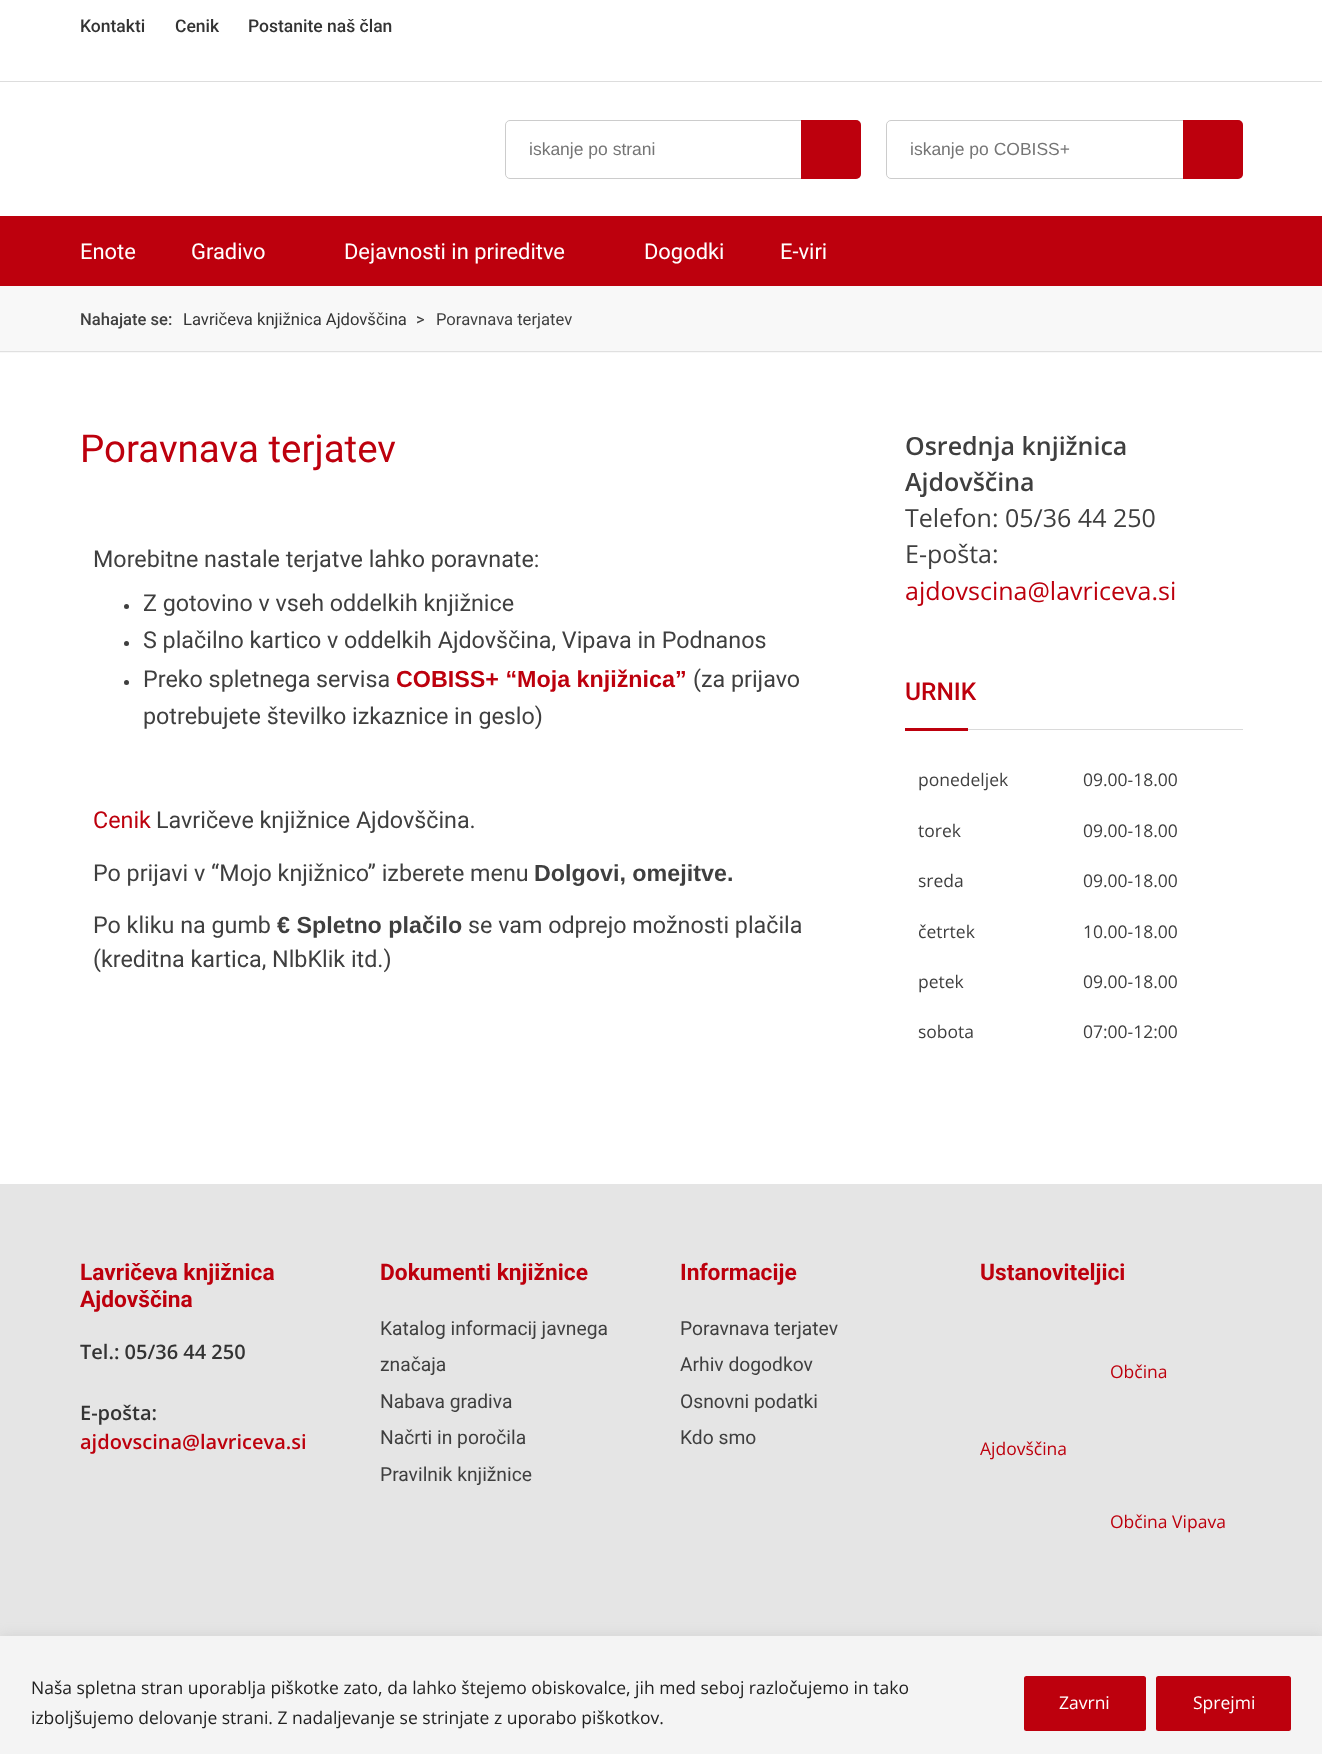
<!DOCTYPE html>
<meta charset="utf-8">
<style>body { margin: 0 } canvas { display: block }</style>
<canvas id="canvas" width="1322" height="1754"></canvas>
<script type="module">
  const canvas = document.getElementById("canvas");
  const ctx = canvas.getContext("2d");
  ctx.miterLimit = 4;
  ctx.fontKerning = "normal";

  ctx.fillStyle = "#ffffff";
  ctx.fillRect(0, 0, 1322, 1754);
  ctx.fillStyle = "#dddddd";
  ctx.fillRect(0, 81, 1322, 1);
  ctx.font = "500 17.5px Roboto";
  ctx.fillStyle = "#333333";
  ctx.fillText("Kontakti", 80, 32);
  ctx.fillText("Cenik", 175, 32);
  ctx.fillText("Postanite naš član", 248, 32);
  ctx.beginPath();
  ctx.roundRect(505.5, 120.5, 355, 58, 4.5);
  ctx.strokeStyle = "#cccccc";
  ctx.stroke();
  ctx.font = "17.5px Liberation Sans";
  ctx.fillStyle = "#757575";
  ctx.fillText("iskanje po strani", 529, 155);
  ctx.fillStyle = "#bd000d";
  ctx.beginPath();
  ctx.roundRect(801, 120, 60, 59, [0, 5, 5, 0]);
  ctx.fill();
  ctx.beginPath();
  ctx.roundRect(886.5, 120.5, 356, 58, 4.5);
  ctx.stroke();
  ctx.fillStyle = "#757575";
  ctx.fillText("iskanje po COBISS+", 910, 155);
  ctx.fillStyle = "#bd000d";
  ctx.beginPath();
  ctx.roundRect(1183, 120, 60, 59, [0, 5, 5, 0]);
  ctx.fill();
  ctx.fillRect(0, 216, 1322, 70);
  ctx.font = "21.9px Roboto";
  ctx.fillStyle = "#ffffff";
  ctx.fillText("Enote", 80, 259);
  ctx.fillText("Gradivo", 191, 259);
  ctx.fillText("Dejavnosti in prireditve", 344, 259);
  ctx.fillText("Dogodki", 644, 259);
  ctx.fillText("E-viri", 780, 259);
  ctx.fillStyle = "#f8f8f8";
  ctx.fillRect(0, 286, 1322, 67);
  ctx.fillStyle = "#e0e0e0";
  ctx.fillRect(0, 351, 1322, 1);
  ctx.font = "500 16.6px Roboto";
  ctx.fillStyle = "#3f3f3f";
  ctx.fillText("Nahajate se:", 80, 325);
  ctx.font = "16.6px Roboto";
  ctx.fillStyle = "#333333";
  ctx.fillText("Lavričeva knjižnica Ajdovščina", 183, 325);
  ctx.fillStyle = "#3f3f3f";
  ctx.fillText(">", 416, 325);
  ctx.fillText("Poravnava terjatev", 436, 325);
  ctx.font = "38.5px Roboto";
  ctx.fillStyle = "#bd000d";
  ctx.fillText("Poravnava terjatev", 80, 462);
  ctx.font = "23.3px Roboto";
  ctx.fillStyle = "#3f3f3f";
  ctx.fillText("Morebitne nastale terjatve lahko poravnate:", 93, 567);
  ctx.beginPath();
  ctx.arc(126.5, 606.5, 2.5, 0, Math.PI * 2);
  ctx.fill();
  ctx.fillText("Z gotovino v vseh oddelkih knjižnice", 143, 611);
  ctx.beginPath();
  ctx.arc(126.5, 643.5, 2.5, 0, Math.PI * 2);
  ctx.fill();
  ctx.fillText("S plačilno kartico v oddelkih Ajdovščina, Vipava in Podnanos", 143, 648);
  ctx.beginPath();
  ctx.arc(126.5, 682.5, 2.5, 0, Math.PI * 2);
  ctx.fill();
  ctx.fillText("Preko spletnega servisa", 143, 687);
  ctx.font = "bold 23.3px Liberation Sans";
  ctx.fillStyle = "#bd000d";
  ctx.fillText("COBISS+ “Moja knjižnica”", 396, 687);
  ctx.font = "23.3px Roboto";
  ctx.fillStyle = "#3f3f3f";
  ctx.fillText("(za prijavo", 693, 687);
  ctx.fillText("potrebujete številko izkaznice in geslo)", 143, 724);
  ctx.fillStyle = "#bd000d";
  ctx.fillText("Cenik", 93, 828);
  ctx.fillStyle = "#3f3f3f";
  ctx.fillText("Lavričeve knjižnice Ajdovščina.", 156, 828);
  ctx.fillText("Po prijavi v “Mojo knjižnico” izberete menu", 93, 881);
  ctx.font = "bold 23.3px Liberation Sans";
  ctx.fillText("Dolgovi, omejitve.", 534, 881);
  ctx.font = "23.3px Roboto";
  ctx.fillText("Po kliku na gumb", 93, 933);
  ctx.font = "bold 23.3px Liberation Sans";
  ctx.fillText("€ Spletno plačilo", 277, 933);
  ctx.font = "23.3px Roboto";
  ctx.fillText("se vam odprejo možnosti plačila", 468, 933);
  ctx.fillText("(kreditna kartica, NlbKlik itd.)", 93, 967);
  ctx.font = "600 25px Open Sans";
  ctx.fillText("Osrednja knjižnica", 905, 455);
  ctx.fillText("Ajdovščina", 905, 491);
  ctx.font = "25px Open Sans";
  ctx.fillText("Telefon: 05/36 44 250", 905, 527);
  ctx.fillText("E-pošta:", 905, 563);
  ctx.fillStyle = "#bd000d";
  ctx.fillText("ajdovscina@lavriceva.si", 905, 600);
  ctx.fillStyle = "#dadada";
  ctx.fillRect(968, 729, 275, 1);
  ctx.font = "500 24.5px Roboto";
  ctx.fillStyle = "#bd000d";
  ctx.fillText("URNIK", 905, 700);
  ctx.fillRect(905, 728, 63, 3);
  ctx.font = "17.5px Open Sans";
  ctx.fillStyle = "#3f3f3f";
  ctx.fillText("ponedeljek", 918, 786);
  ctx.fillText("09.00-18.00", 1083, 786);
  ctx.fillText("torek", 918, 837);
  ctx.fillText("09.00-18.00", 1083, 837);
  ctx.fillText("sreda", 918, 887);
  ctx.fillText("09.00-18.00", 1083, 887);
  ctx.fillText("četrtek", 918, 938);
  ctx.fillText("10.00-18.00", 1083, 938);
  ctx.fillText("petek", 918, 988);
  ctx.fillText("09.00-18.00", 1083, 988);
  ctx.fillText("sobota", 918, 1038);
  ctx.fillText("07:00-12:00", 1083, 1038);
  ctx.fillStyle = "#e5e5e5";
  ctx.fillRect(0, 1184, 1322, 452);
  ctx.font = "bold 22.75px Roboto";
  ctx.fillStyle = "#bd000d";
  ctx.fillText("Lavričeva knjižnica", 80, 1280);
  ctx.fillText("Ajdovščina", 80, 1307);
  ctx.font = "600 20px Open Sans";
  ctx.fillStyle = "#333333";
  ctx.fillText("Tel.: 05/36 44 250", 80, 1359);
  ctx.fillText("E-pošta:", 80, 1420);
  ctx.fillStyle = "#bd000d";
  ctx.fillText("ajdovscina@lavriceva.si", 80, 1449);
  ctx.font = "bold 22.75px Roboto";
  ctx.fillText("Dokumenti knjižnice", 380, 1280);
  ctx.font = "19.25px Roboto";
  ctx.fillStyle = "#3f3f3f";
  ctx.fillText("Katalog informacij javnega", 380, 1335);
  ctx.fillText("značaja", 380, 1371);
  ctx.fillText("Nabava gradiva", 380, 1408);
  ctx.fillText("Načrti in poročila", 380, 1444);
  ctx.fillText("Pravilnik knjižnice", 380, 1481);
  ctx.font = "bold 22.75px Roboto";
  ctx.fillStyle = "#bd000d";
  ctx.fillText("Informacije", 680, 1280);
  ctx.font = "19.25px Roboto";
  ctx.fillStyle = "#3f3f3f";
  ctx.fillText("Poravnava terjatev", 680, 1335);
  ctx.fillText("Arhiv dogodkov", 680, 1371);
  ctx.fillText("Osnovni podatki", 680, 1408);
  ctx.fillText("Kdo smo", 680, 1444);
  ctx.font = "bold 22.75px Roboto";
  ctx.fillStyle = "#bd000d";
  ctx.fillText("Ustanoviteljici", 980, 1280);
  ctx.font = "17.5px Open Sans";
  ctx.fillText("Občina", 1110, 1378);
  ctx.fillText("Ajdovščina", 980, 1455);
  ctx.fillText("Občina Vipava", 1110, 1528);
  ctx.fillStyle = "rgba(172, 171, 171, 0.3)";
  ctx.filter = "blur(6px)";
  ctx.beginPath();
  ctx.rect(0, 1635, 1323, 119);
  ctx.fill();
  ctx.filter = "none";
  ctx.fillStyle = "#f4f4f4";
  ctx.fillRect(0, 1636, 1322, 118);
  ctx.fillStyle = "#212121";
  ctx.fillText("Naša spletna stran uporablja piškotke zato, da lahko štejemo obiskovalce, jih med seboj razločujemo in tako", 31, 1694);
  ctx.fillText("izboljšujemo delovanje strani. Z nadaljevanje se strinjate z uporabo piškotkov.", 31, 1724);
  ctx.fillStyle = "#bd000d";
  ctx.beginPath();
  ctx.roundRect(1025.5, 1677.5, 119, 52, 1);
  ctx.fill();
  ctx.strokeStyle = "#bd000d";
  ctx.lineWidth = 3;
  ctx.stroke();
  ctx.fillStyle = "#ffffff";
  ctx.fillText("Zavrni", 1059, 1709);
  ctx.fillStyle = "#bd000d";
  ctx.beginPath();
  ctx.roundRect(1157.5, 1677.5, 132, 52, 1);
  ctx.fill();
  ctx.stroke();
  ctx.fillStyle = "#ffffff";
  ctx.fillText("Sprejmi", 1193, 1709);
</script>
